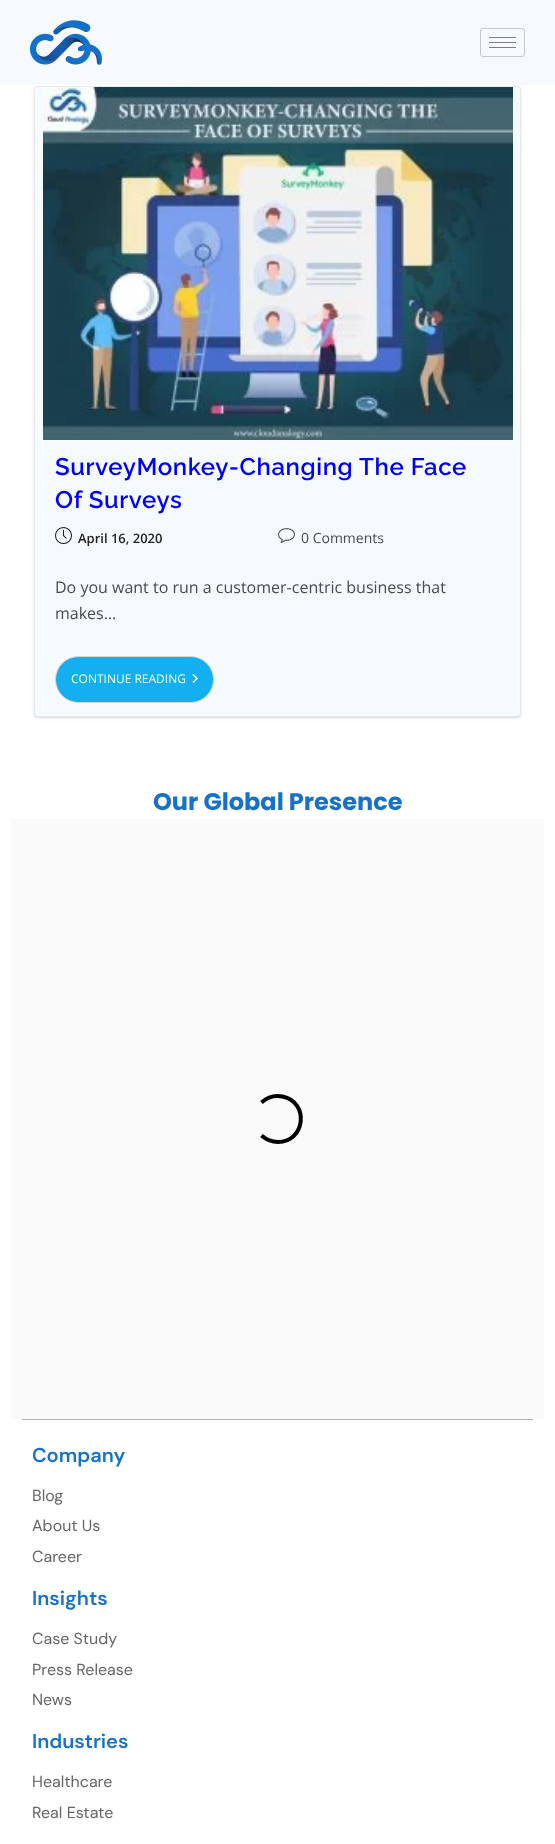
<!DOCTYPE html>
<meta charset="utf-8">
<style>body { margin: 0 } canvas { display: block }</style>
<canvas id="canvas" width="555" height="1844"></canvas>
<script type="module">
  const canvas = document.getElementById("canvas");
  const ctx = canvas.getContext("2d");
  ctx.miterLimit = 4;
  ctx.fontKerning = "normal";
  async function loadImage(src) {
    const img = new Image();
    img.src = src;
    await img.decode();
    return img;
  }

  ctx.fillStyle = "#ffffff";
  ctx.fillRect(0, 0, 555, 1844);
  ctx.fillStyle = "rgba(60, 64, 67, 0.08)";
  ctx.filter = "blur(1.5px)";
  ctx.beginPath();
  ctx.roundRect(33, 86, 489, 633, 5);
  ctx.fill();
  ctx.filter = "none";
  ctx.filter = "blur(0.5px)";
  ctx.beginPath();
  ctx.roundRect(34, 87, 487, 631, 4);
  ctx.fill();
  ctx.filter = "none";
  ctx.fillStyle = "#f6faff";
  ctx.fillRect(0, 0, 555, 85);
  ctx.fillStyle = "#ffffff";
  ctx.fillRect(35, 85, 485, 1);
  ctx.drawImage(await loadImage("img1.png"), 30, 20, 72, 45);
  ctx.beginPath();
  ctx.roundRect(480.5, 28.5, 44, 28, 2.5);
  ctx.strokeStyle = "#c5c8cc";
  ctx.stroke();
  ctx.fillStyle = "#7b7d80";
  ctx.fillRect(489, 37, 27, 1);
  ctx.fillRect(489, 42, 27, 1);
  ctx.fillRect(489, 47, 27, 1);
  ctx.fillStyle = "#f5faff";
  ctx.beginPath();
  ctx.roundRect(34.5, 86.5, 486, 630, 3.5);
  ctx.fill();
  ctx.strokeStyle = "#e9e9e9";
  ctx.stroke();
  ctx.drawImage(await loadImage("img2.png"), 43, 87, 470, 353);
  ctx.letterSpacing = "0.6px";
  ctx.font = "600 24px Raleway";
  ctx.fillStyle = "#0000ff";
  ctx.fillText("SurveyMonkey-Changing The Face", 55, 475);
  ctx.fillText("Of Surveys", 55, 508);
  ctx.drawImage(await loadImage("img3.png"), 55, 527, 17, 18);
  ctx.letterSpacing = "0px";
  ctx.font = "600 13px Open Sans";
  ctx.fillStyle = "#222222";
  ctx.fillText("April 16, 2020", 78, 543);
  ctx.drawImage(await loadImage("img4.png"), 278, 528, 17, 15);
  ctx.font = "14px Open Sans";
  ctx.fillStyle = "#4a4a4a";
  ctx.fillText("0 Comments", 301, 543);
  ctx.font = "16px Open Sans";
  ctx.fillText("Do you want to run a customer-centric business that", 55, 593);
  ctx.fillText("makes…", 55, 619);
  ctx.fillStyle = "#13aff0";
  ctx.beginPath();
  ctx.roundRect(55.5, 656.5, 158, 46, 23);
  ctx.fill();
  ctx.strokeStyle = "#d6d5d5";
  ctx.stroke();
  ctx.font = "12px Open Sans";
  ctx.fillStyle = "#ffffff";
  ctx.fillText("CONTINUE READING", 71, 683);
  ctx.drawImage(await loadImage("img5.png"), 192, 674, 6, 9);
  ctx.font = "bold 24px Poppins";
  ctx.fillStyle = "#1571cb";
  ctx.fillText("Our Global Presence", 153, 810);
  ctx.fillStyle = "#fafafa";
  ctx.fillRect(11, 819, 533, 600);
  ctx.beginPath();
  ctx.moveTo(261.5, 1102.5);
  ctx.bezierCurveTo(267, 1097.5, 275, 1095, 282.5, 1096.5);
  ctx.bezierCurveTo(309.5, 1102, 305.5, 1142, 278, 1142);
  ctx.bezierCurveTo(272, 1142, 266, 1139.5, 261.5, 1135.5);
  ctx.strokeStyle = "#000000";
  ctx.lineWidth = 4;
  ctx.stroke();
  ctx.fillStyle = "#b2b2b2";
  ctx.fillRect(22, 1419, 511, 1);
  ctx.font = "600 20px DM Sans";
  ctx.fillStyle = "#1571cb";
  ctx.fillText("Company", 32, 1462);
  ctx.font = "16px DM Sans";
  ctx.fillStyle = "#666666";
  ctx.fillText("Blog", 32, 1501);
  ctx.fillText("About Us", 32, 1531);
  ctx.fillText("Career", 32, 1562);
  ctx.font = "600 20px DM Sans";
  ctx.fillStyle = "#1571cb";
  ctx.fillText("Insights", 32, 1605);
  ctx.font = "16px DM Sans";
  ctx.fillStyle = "#666666";
  ctx.fillText("Case Study", 32, 1644);
  ctx.fillText("Press Release", 32, 1675);
  ctx.fillText("News", 32, 1705);
  ctx.font = "600 20px DM Sans";
  ctx.fillStyle = "#1571cb";
  ctx.fillText("Industries", 32, 1748);
  ctx.font = "16px DM Sans";
  ctx.fillStyle = "#666666";
  ctx.fillText("Healthcare", 32, 1787);
  ctx.fillText("Real Estate", 32, 1818);
</script>
